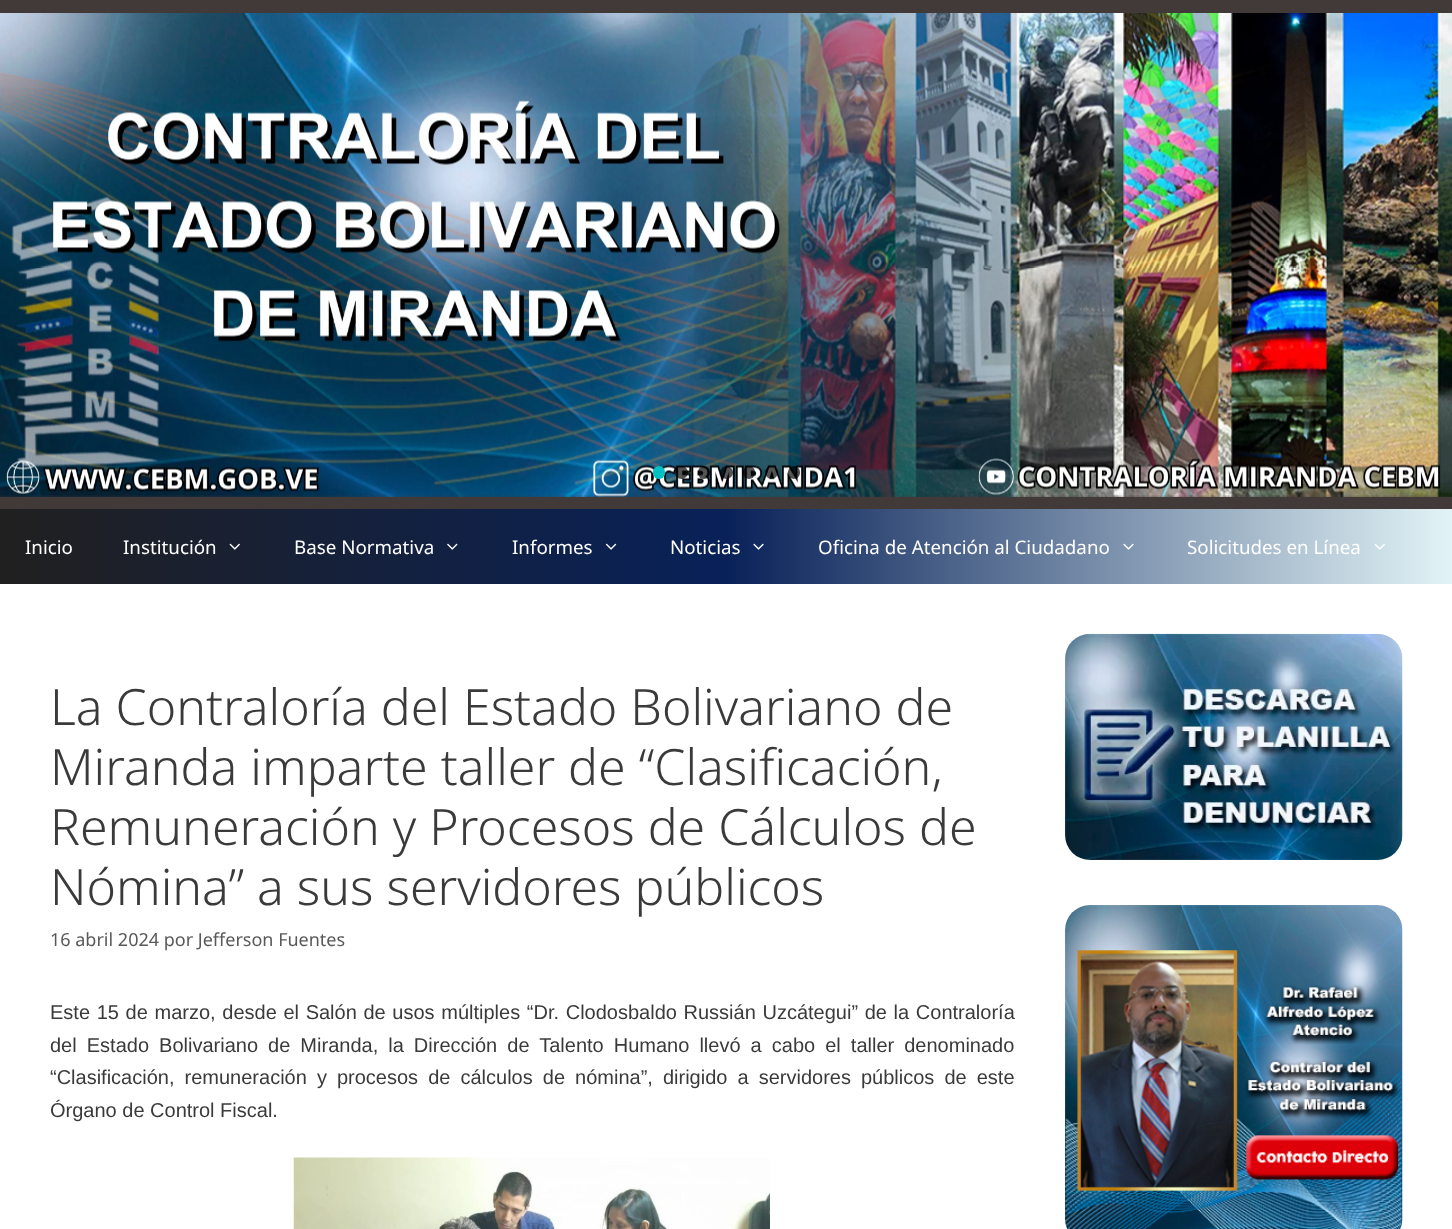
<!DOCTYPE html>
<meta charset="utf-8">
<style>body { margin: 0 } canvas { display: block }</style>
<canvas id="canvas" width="1452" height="1229"></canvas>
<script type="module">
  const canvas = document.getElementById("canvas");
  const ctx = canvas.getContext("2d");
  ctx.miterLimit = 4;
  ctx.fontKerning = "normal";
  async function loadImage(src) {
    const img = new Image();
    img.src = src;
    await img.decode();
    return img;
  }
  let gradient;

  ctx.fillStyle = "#423939";
  ctx.fillRect(0, 0, 1452, 1229);
  ctx.drawImage(await loadImage("img1.png"), 0, 13, 1452, 484);
  ctx.fillStyle = "#00c1c4";
  ctx.beginPath();
  ctx.roundRect(653, 466, 12, 13, 6);
  ctx.fill();
  ctx.fillStyle = "rgba(0, 0, 0, 0.67)";
  ctx.beginPath();
  ctx.arc(681.5, 472.5, 6.5, 0, Math.PI * 2);
  ctx.fill();
  ctx.beginPath();
  ctx.roundRect(698, 466, 12, 13, 6);
  ctx.fill();
  ctx.beginPath();
  ctx.arc(726.5, 472.5, 6.5, 0, Math.PI * 2);
  ctx.fill();
  ctx.beginPath();
  ctx.roundRect(743, 466, 12, 13, 6);
  ctx.fill();
  ctx.beginPath();
  ctx.arc(771.5, 472.5, 6.5, 0, Math.PI * 2);
  ctx.fill();
  ctx.beginPath();
  ctx.roundRect(788, 466, 12, 13, 6);
  ctx.fill();
  gradient = ctx.createLinearGradient(0, 546, 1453, 546);
  gradient.addColorStop(0, "#212020");
  gradient.addColorStop(0.5, "#082158");
  gradient.addColorStop(1, "#e2f4f7");
  ctx.fillStyle = gradient;
  ctx.fillRect(0, 509, 1452, 75);
  ctx.font = "18.75px Noto Sans";
  ctx.fillStyle = "#ffffff";
  ctx.fillText("Inicio", 25, 554);
  ctx.fillText("Institución", 123, 554);
  ctx.drawImage(await loadImage("img2.png"), 229, 543, 11, 7);
  ctx.fillText("Base Normativa", 294, 554);
  ctx.drawImage(await loadImage("img3.png"), 447, 543, 11, 7);
  ctx.fillText("Informes", 512, 554);
  ctx.drawImage(await loadImage("img4.png"), 605, 543, 12, 7);
  ctx.fillText("Noticias", 670, 554);
  ctx.drawImage(await loadImage("img5.png"), 753, 543, 11, 7);
  ctx.fillText("Oficina de Atención al Ciudadano", 818, 554);
  ctx.drawImage(await loadImage("img6.png"), 1123, 543, 11, 7);
  ctx.fillText("Solicitudes en Línea", 1187, 554);
  ctx.drawImage(await loadImage("img7.png"), 1374, 543, 11, 7);
  ctx.fillRect(0, 584, 1452, 645);
  ctx.font = "300 50px Noto Sans";
  ctx.fillStyle = "#3a3a3a";
  ctx.fillText("La Contraloría del Estado Bolivariano de", 50, 725);
  ctx.fillText("Miranda imparte taller de “Clasificación,", 50, 785);
  ctx.fillText("Remuneración y Procesos de Cálculos de", 50, 845);
  ctx.fillText("Nómina” a sus servidores públicos", 50, 905);
  ctx.font = "18px Noto Sans";
  ctx.fillStyle = "#595959";
  ctx.fillText("16 abril 2024 por Jefferson Fuentes", 50, 946);
  ctx.wordSpacing = "1.1px";
  ctx.font = "20px Liberation Sans";
  ctx.fillStyle = "#3a3a3a";
  ctx.fillText("Este 15 de marzo, desde el Salón de usos múltiples “Dr. Clodosbaldo Russián Uzcátegui” de la Contraloría", 50, 1019);
  ctx.wordSpacing = "4.5px";
  ctx.fillText("del Estado Bolivariano de Miranda, la Dirección de Talento Humano llevó a cabo el taller denominado", 50, 1052);
  ctx.fillText("“Clasificación, remuneración y procesos de cálculos de nómina”, dirigido a servidores públicos de este", 50, 1084);
  ctx.wordSpacing = "0px";
  ctx.fillText("Órgano de Control Fiscal.", 50, 1117);
  ctx.drawImage(await loadImage("img8.png"), 293, 1157, 477, 72);
  ctx.drawImage(await loadImage("img9.png"), 1065, 633, 338, 227);
  ctx.drawImage(await loadImage("img10.png"), 1065, 905, 338, 324);
</script>
